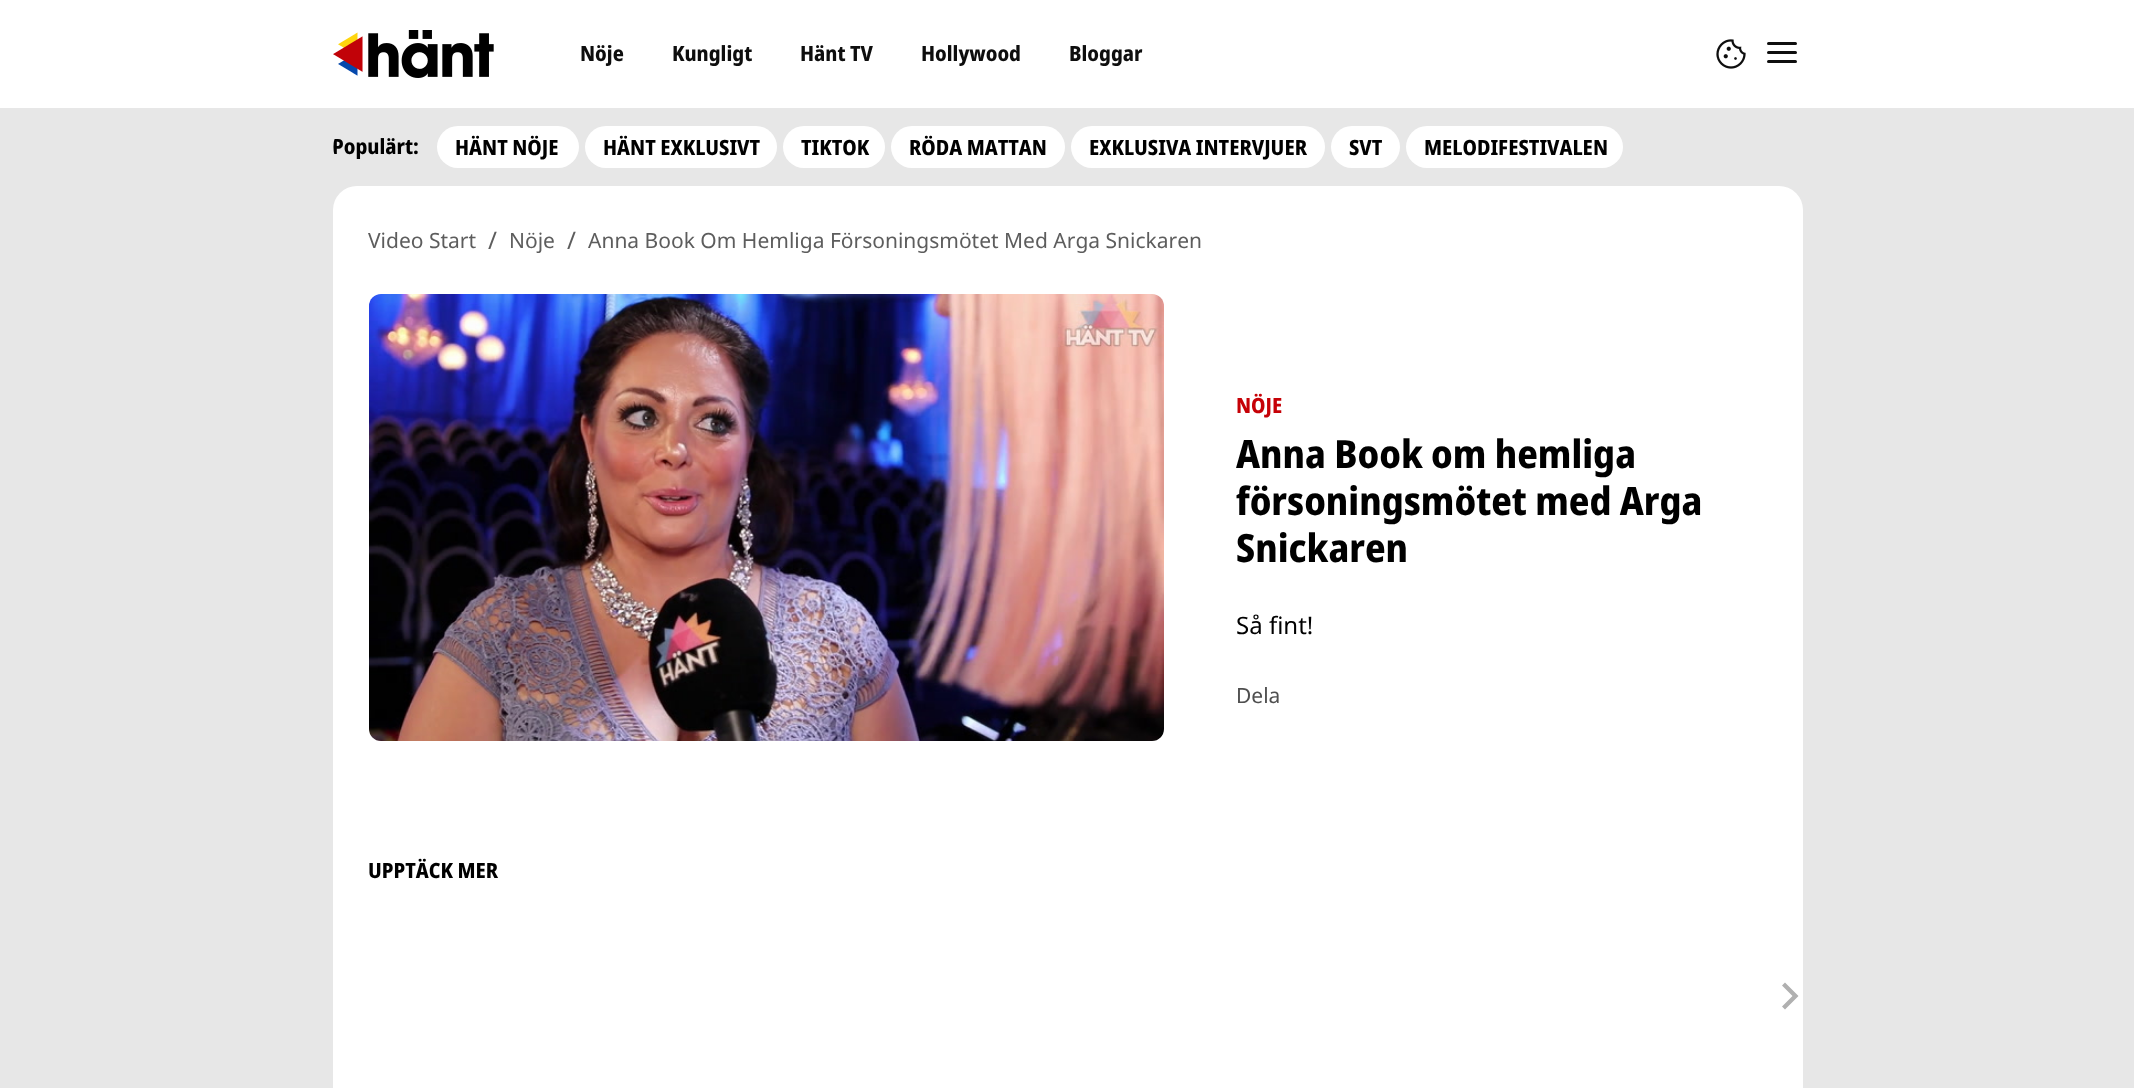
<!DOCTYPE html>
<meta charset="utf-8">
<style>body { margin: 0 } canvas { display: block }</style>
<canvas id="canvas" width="2134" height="1088"></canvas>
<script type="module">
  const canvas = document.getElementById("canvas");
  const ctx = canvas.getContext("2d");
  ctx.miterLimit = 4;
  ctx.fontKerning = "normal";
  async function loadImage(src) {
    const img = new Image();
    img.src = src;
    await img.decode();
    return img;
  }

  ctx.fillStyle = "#e7e7e7";
  ctx.fillRect(0, 0, 2134, 1088);
  ctx.fillStyle = "#ffffff";
  ctx.fillRect(0, 0, 2134, 108);
  ctx.drawImage(await loadImage("img1.png"), 333, 30, 161, 48);
  ctx.font = "800 21px Noto Sans";
  ctx.fillStyle = "#0e0e0e";
  ctx.fillText("Nöje", 580, 61);
  ctx.fillText("Kungligt", 672, 61);
  ctx.fillText("Hänt TV", 800, 61);
  ctx.fillText("Hollywood", 921, 61);
  ctx.fillText("Bloggar", 1069, 61);
  ctx.drawImage(await loadImage("img2.png"), 1716, 39, 30, 30);
  ctx.beginPath();
  ctx.roundRect(1767, 42, 30, 3, 1.5);
  ctx.fill();
  ctx.beginPath();
  ctx.roundRect(1767, 51, 30, 3, 1.5);
  ctx.fill();
  ctx.beginPath();
  ctx.roundRect(1767, 60, 30, 3, 1.5);
  ctx.fill();
  ctx.save();
  ctx.beginPath();
  ctx.roundRect(333, 126, 1470, 42, 21);
  ctx.clip();
  ctx.fillStyle = "#000000";
  ctx.fillText("Populärt:", 332, 154);
  ctx.restore();
  ctx.fillStyle = "#ffffff";
  ctx.beginPath();
  ctx.roundRect(437, 126, 142, 42, 21);
  ctx.fill();
  ctx.fillStyle = "#000000";
  ctx.fillText("HÄNT NÖJE", 455, 155);
  ctx.fillStyle = "#ffffff";
  ctx.beginPath();
  ctx.roundRect(585, 126, 192, 42, 21);
  ctx.fill();
  ctx.fillStyle = "#000000";
  ctx.fillText("HÄNT EXKLUSIVT", 603, 155);
  ctx.fillStyle = "#ffffff";
  ctx.beginPath();
  ctx.roundRect(783, 126, 102, 42, 21);
  ctx.fill();
  ctx.fillStyle = "#000000";
  ctx.fillText("TIKTOK", 801, 155);
  ctx.fillStyle = "#ffffff";
  ctx.beginPath();
  ctx.roundRect(891, 126, 174, 42, 21);
  ctx.fill();
  ctx.fillStyle = "#000000";
  ctx.fillText("RÖDA MATTAN", 909, 155);
  ctx.fillStyle = "#ffffff";
  ctx.beginPath();
  ctx.roundRect(1071, 126, 254, 42, 21);
  ctx.fill();
  ctx.fillStyle = "#000000";
  ctx.fillText("EXKLUSIVA INTERVJUER", 1089, 155);
  ctx.fillStyle = "#ffffff";
  ctx.beginPath();
  ctx.roundRect(1331, 126, 69, 42, 21);
  ctx.fill();
  ctx.fillStyle = "#000000";
  ctx.fillText("SVT", 1349, 155);
  ctx.fillStyle = "#ffffff";
  ctx.beginPath();
  ctx.roundRect(1406, 126, 217, 42, 21);
  ctx.fill();
  ctx.fillStyle = "#000000";
  ctx.fillText("MELODIFESTIVALEN", 1424, 155);
  ctx.fillStyle = "#ffffff";
  ctx.beginPath();
  ctx.roundRect(333, 186, 1470, 108, [24, 24, 0, 0]);
  ctx.fill();
  ctx.font = "21px Noto Sans";
  ctx.fillStyle = "#5d5d5d";
  ctx.fillText("Video Start", 368, 248);
  ctx.font = "24px 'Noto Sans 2'";
  ctx.fillText("/", 488, 249);
  ctx.font = "21px Noto Sans";
  ctx.fillText("Nöje", 509, 248);
  ctx.font = "24px 'Noto Sans 2'";
  ctx.fillText("/", 567, 249);
  ctx.font = "21px Noto Sans";
  ctx.fillText("Anna Book Om Hemliga Försoningsmötet Med Arga Snickaren", 588, 248);
  ctx.fillStyle = "#ffffff";
  ctx.fillRect(333, 294, 1470, 794);
  ctx.drawImage(await loadImage("img3.png"), 369, 294, 795, 447);
  ctx.font = "800 21px Noto Sans";
  ctx.fillStyle = "#c60107";
  ctx.fillText("NÖJE", 1236, 413);
  ctx.font = "800 39px Noto Sans";
  ctx.fillStyle = "#000000";
  ctx.fillText("Anna Book om hemliga", 1236, 468);
  ctx.fillText("försoningsmötet med Arga", 1236, 515);
  ctx.fillText("Snickaren", 1236, 562);
  ctx.font = "24px Noto Sans";
  ctx.fillText("Så fint!", 1236, 634);
  ctx.font = "21px Noto Sans";
  ctx.fillStyle = "#4f4f4f";
  ctx.fillText("Dela", 1236, 703);
  ctx.font = "800 21px Noto Sans";
  ctx.fillStyle = "#000000";
  ctx.fillText("UPPTÄCK MER", 368, 878);
  ctx.fillStyle = "#b0b0b0";
  ctx.beginPath();
  ctx.moveTo(1792.5, 996);
  ctx.lineTo(1782, 985.5);
  ctx.lineTo(1785, 982.5);
  ctx.lineTo(1798.5, 996);
  ctx.lineTo(1785, 1009.5);
  ctx.lineTo(1782, 1006.5);
  ctx.closePath();
  ctx.fill();
</script>
